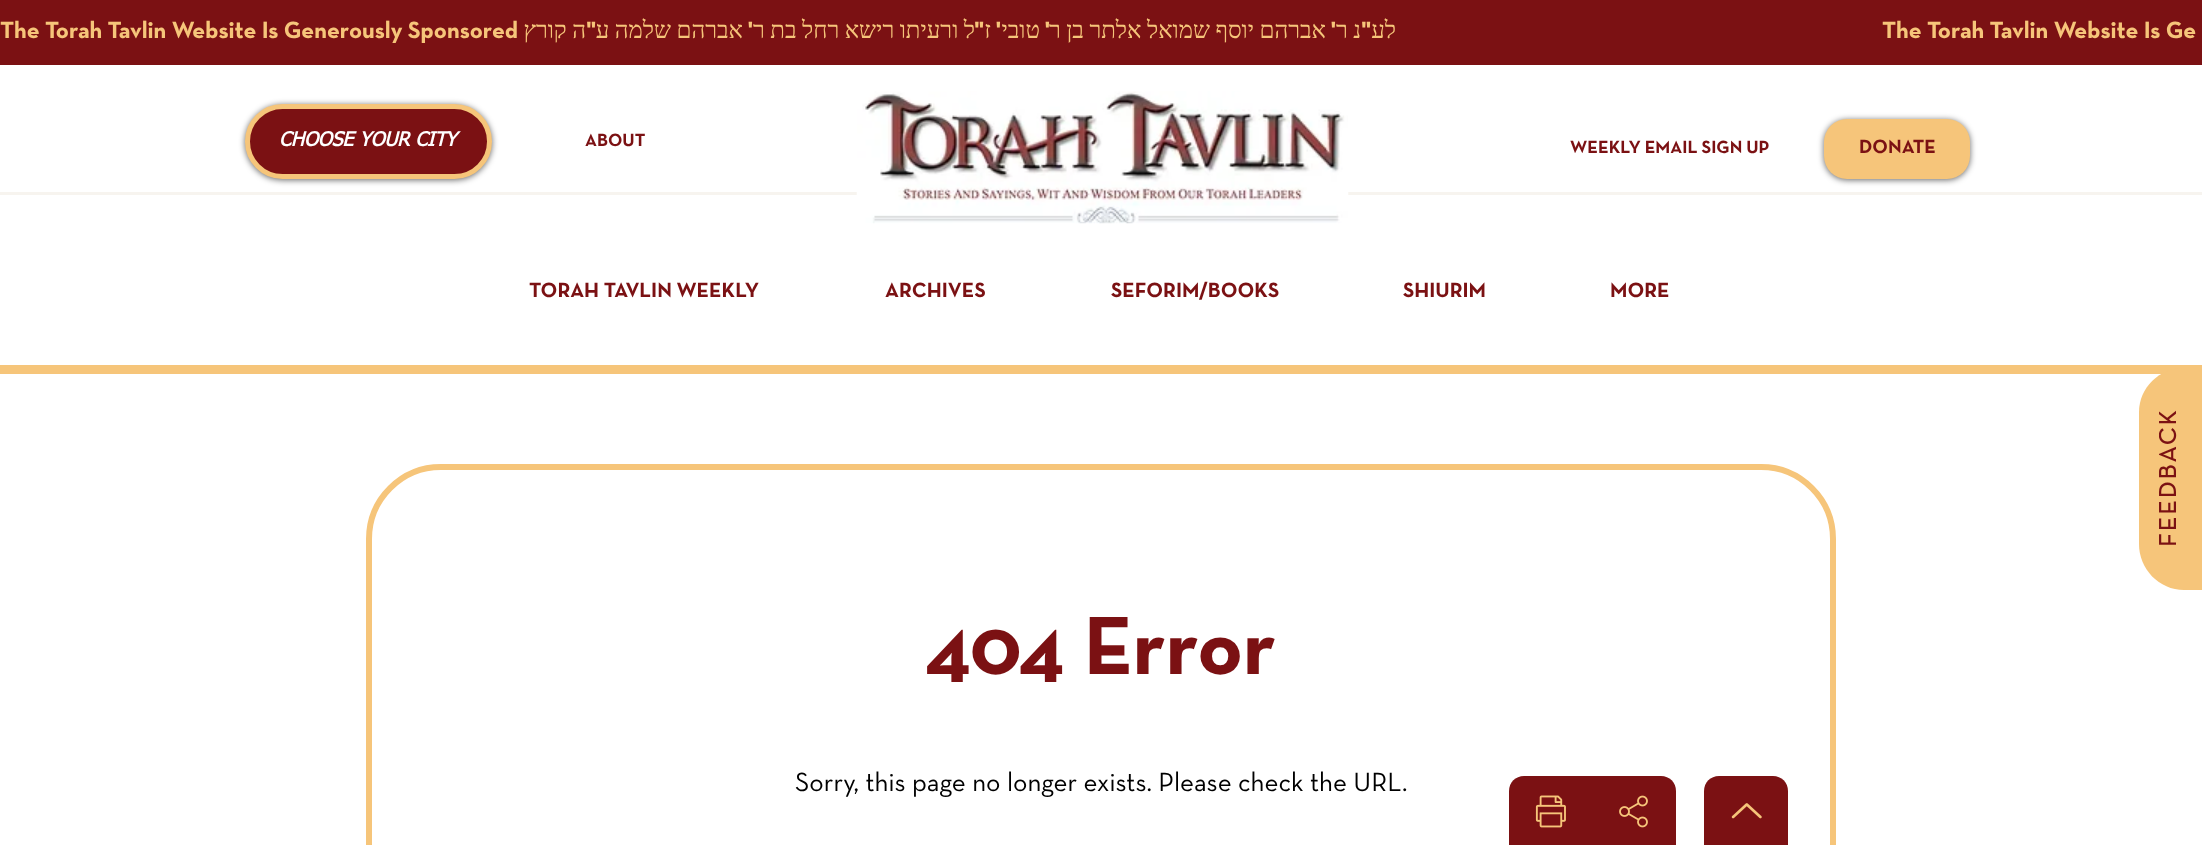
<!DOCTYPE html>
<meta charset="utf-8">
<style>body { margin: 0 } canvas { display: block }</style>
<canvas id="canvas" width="2202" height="845"></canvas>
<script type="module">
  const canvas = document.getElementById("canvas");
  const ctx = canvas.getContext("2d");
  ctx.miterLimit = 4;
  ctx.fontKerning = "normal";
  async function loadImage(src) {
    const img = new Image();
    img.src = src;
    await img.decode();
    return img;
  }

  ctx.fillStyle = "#ffffff";
  ctx.fillRect(0, 0, 2202, 845);
  ctx.fillStyle = "#7b1113";
  ctx.fillRect(0, 0, 2202, 65);
  ctx.font = "bold 24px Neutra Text";
  ctx.fillStyle = "#f6c57a";
  ctx.fillText("The Torah Tavlin Website Is Generously Sponsored", 0, 38);
  ctx.wordSpacing = "-0.5px";
  ctx.direction = "rtl";
  ctx.font = "24px Liberation Serif";
  ctx.fillText("ה קורץ", 586, 38);
  ctx.wordSpacing = "0px";
  ctx.font = "bold 24px Neutra Text";
  ctx.fillText("\"", 596, 38);
  ctx.wordSpacing = "-0.5px";
  ctx.font = "24px Liberation Serif";
  ctx.fillText("אברהם שלמה ע", 743, 38);
  ctx.wordSpacing = "0px";
  ctx.font = "bold 24px Neutra Text";
  ctx.fillText("'", 753, 38);
  ctx.wordSpacing = "-0.5px";
  ctx.font = "24px Liberation Serif";
  ctx.fillText("ל ורעיתו רישא רחל בת ר", 975, 38);
  ctx.wordSpacing = "0px";
  ctx.font = "bold 24px Neutra Text";
  ctx.fillText("\"", 984, 38);
  ctx.font = "24px Liberation Serif";
  ctx.fillText("ז", 991, 38);
  ctx.font = "bold 24px Neutra Text";
  ctx.fillText("'", 1001, 38);
  ctx.font = "24px Liberation Serif";
  ctx.fillText("טובי", 1040, 38);
  ctx.font = "bold 24px Neutra Text";
  ctx.fillText("'", 1050, 38);
  ctx.wordSpacing = "-0.5px";
  ctx.font = "24px Liberation Serif";
  ctx.fillText("אברהם יוסף שמואל אלתר בן ר", 1326, 38);
  ctx.wordSpacing = "0px";
  ctx.font = "bold 24px Neutra Text";
  ctx.fillText("'", 1336, 38);
  ctx.wordSpacing = "-0.5px";
  ctx.font = "24px Liberation Serif";
  ctx.fillText("נ ר", 1361, 38);
  ctx.wordSpacing = "0px";
  ctx.font = "bold 24px Neutra Text";
  ctx.fillText("\"", 1371, 38);
  ctx.font = "24px Liberation Serif";
  ctx.fillText("לע", 1396, 38);
  ctx.direction = "ltr";
  ctx.font = "bold 24px Neutra Text";
  ctx.fillText("The Torah Tavlin Website Is Ge", 1882, 38);
  ctx.fillStyle = "rgba(0, 0, 0, 0.6)";
  ctx.filter = "blur(3px)";
  ctx.beginPath();
  ctx.roundRect(245, 105, 247, 75, 37.5);
  ctx.fill();
  ctx.filter = "none";
  ctx.fillStyle = "#7b1113";
  ctx.beginPath();
  ctx.roundRect(247.5, 106.5, 242, 70, 35);
  ctx.fill();
  ctx.strokeStyle = "#f6c57a";
  ctx.lineWidth = 5;
  ctx.stroke();
  ctx.font = "italic bold 19.5px tahoma";
  ctx.fillStyle = "#ffffff";
  ctx.fillText("CHOOSE YOUR CITY", 279, 146);
  ctx.font = "bold 18px Neutra Text";
  ctx.fillStyle = "#7b1113";
  ctx.fillText("ABOUT", 585, 146);
  ctx.fillStyle = "#f7f4ef";
  ctx.fillRect(0, 192, 2202, 3);
  ctx.drawImage(await loadImage("img1.png"), 856, 91, 493, 133);
  ctx.fillStyle = "#7b1113";
  ctx.fillText("WEEKLY EMAIL SIGN UP", 1570, 153);
  ctx.fillStyle = "rgba(0, 0, 0, 0.6)";
  ctx.filter = "blur(3px)";
  ctx.beginPath();
  ctx.roundRect(1824, 120, 146, 60, 23);
  ctx.fill();
  ctx.filter = "none";
  ctx.fillStyle = "#f6c57a";
  ctx.beginPath();
  ctx.roundRect(1824, 119, 146, 60, 23);
  ctx.fill();
  ctx.font = "bold 19.5px Neutra Text";
  ctx.fillStyle = "#7b1113";
  ctx.fillText("DONATE", 1859, 153);
  ctx.font = "bold 21px Neutra Text";
  ctx.fillText("TORAH TAVLIN WEEKLY", 529, 297);
  ctx.fillText("ARCHIVES", 885, 297);
  ctx.fillText("SEFORIM/BOOKS", 1111, 297);
  ctx.fillText("SHIURIM", 1403, 297);
  ctx.fillText("MORE", 1610, 297);
  ctx.fillStyle = "#f6c57a";
  ctx.beginPath();
  ctx.moveTo(-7, -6);
  ctx.lineTo(-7, 374);
  ctx.lineTo(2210, 374);
  ctx.lineTo(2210, -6);
  ctx.closePath();
  ctx.moveTo(0, 0);
  ctx.lineTo(0, 364);
  ctx.lineTo(2202, 364);
  ctx.lineTo(2202, 0);
  ctx.closePath();
  ctx.fill("evenodd");
  ctx.fillStyle = "#ffffff";
  ctx.fillRect(0, 364, 2202, 1);
  ctx.fillStyle = "#f6c57a";
  ctx.beginPath();
  ctx.moveTo(2139, 544);
  ctx.lineTo(2139, 412);
  ctx.bezierCurveTo(2139, 388, 2159, 368, 2184, 368);
  ctx.lineTo(2202, 368);
  ctx.lineTo(2202, 590);
  ctx.lineTo(2184, 590);
  ctx.bezierCurveTo(2159, 590, 2139, 569, 2139, 544);
  ctx.closePath();
  ctx.fill();
  ctx.save();
  ctx.beginPath();
  ctx.moveTo(2159, 547.5);
  ctx.lineTo(2159, 409.5);
  ctx.lineTo(2182, 409.5);
  ctx.lineTo(2182, 547.5);
  ctx.closePath();
  ctx.clip();
  ctx.letterSpacing = "2.5px";
  ctx.font = "bold 24px 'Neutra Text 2'";
  ctx.fillStyle = "#7b1113";
  ctx.save();
  ctx.translate(2176, 547);
  ctx.rotate(-90 * Math.PI / 180);
  ctx.fillText("FEEDBACK", 0, 0);
  ctx.restore();
  ctx.restore();
  ctx.beginPath();
  ctx.roundRect(369, 467, 1464, 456, 72);
  ctx.lineWidth = 6;
  ctx.stroke();
  ctx.font = "bold 84px Neutra Text";
  ctx.fillStyle = "#7b1113";
  ctx.fillText("404 Error", 925, 674);
  ctx.font = "27px Neutra Text";
  ctx.fillStyle = "#000000";
  ctx.fillText("Sorry, this page no longer exists. Please check the URL.", 795, 791);
  ctx.fillStyle = "#7b1113";
  ctx.beginPath();
  ctx.moveTo(1524, 776);
  ctx.lineTo(1593, 776);
  ctx.lineTo(1593, 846);
  ctx.lineTo(1509, 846);
  ctx.lineTo(1509, 791);
  ctx.bezierCurveTo(1509, 782.5, 1515.5, 776, 1524, 776);
  ctx.closePath();
  ctx.fill();
  ctx.drawImage(await loadImage("img2.png"), 1535, 795, 31, 33);
  ctx.beginPath();
  ctx.moveTo(1592, 776);
  ctx.lineTo(1661, 776);
  ctx.bezierCurveTo(1669.5, 776, 1676, 782.5, 1676, 791);
  ctx.lineTo(1676, 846);
  ctx.lineTo(1592, 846);
  ctx.closePath();
  ctx.fill();
  ctx.drawImage(await loadImage("img3.png"), 1619, 795, 29, 33);
  ctx.beginPath();
  ctx.moveTo(1719, 776);
  ctx.lineTo(1773, 776);
  ctx.bezierCurveTo(1781.5, 776, 1788, 782.5, 1788, 791);
  ctx.lineTo(1788, 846);
  ctx.lineTo(1704, 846);
  ctx.lineTo(1704, 791);
  ctx.bezierCurveTo(1704, 782.5, 1710.5, 776, 1719, 776);
  ctx.closePath();
  ctx.fill();
  ctx.drawImage(await loadImage("img4.png"), 1731, 803, 31, 16);
</script>
